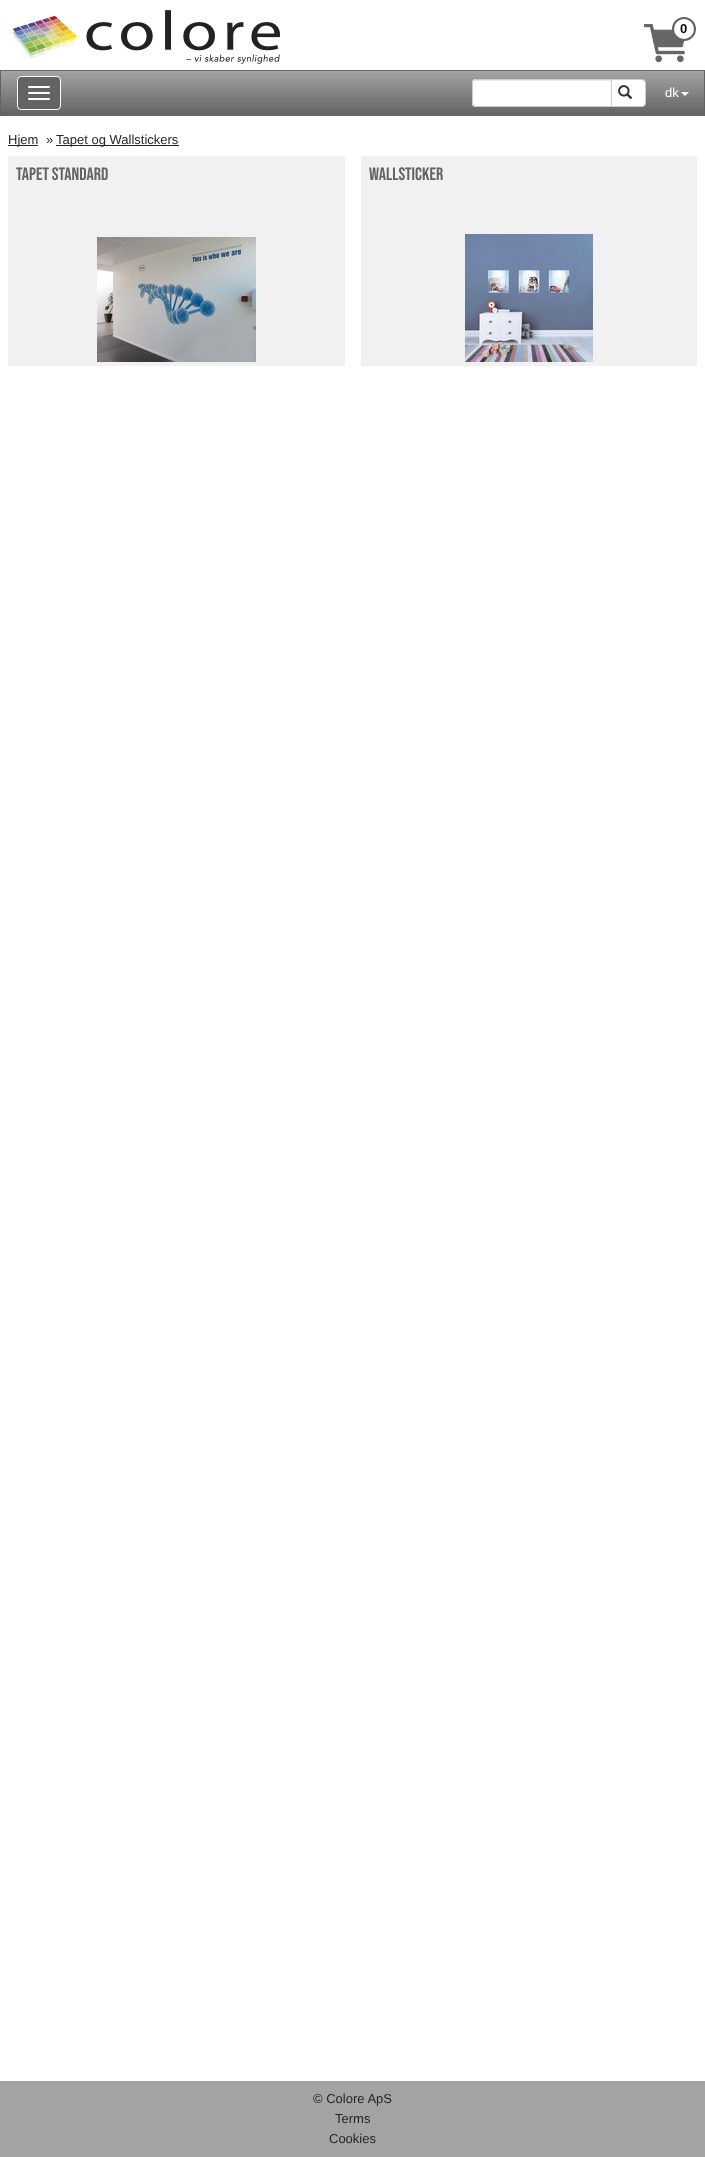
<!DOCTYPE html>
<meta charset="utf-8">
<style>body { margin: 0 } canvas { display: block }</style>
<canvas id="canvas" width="705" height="2157"></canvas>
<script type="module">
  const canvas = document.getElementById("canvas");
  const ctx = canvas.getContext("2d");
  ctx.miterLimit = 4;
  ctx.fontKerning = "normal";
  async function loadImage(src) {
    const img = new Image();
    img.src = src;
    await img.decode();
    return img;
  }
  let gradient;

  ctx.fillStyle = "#ffffff";
  ctx.fillRect(0, 0, 705, 2157);
  ctx.drawImage(await loadImage("img1.png"), 13, 10, 267, 54);
  ctx.drawImage(await loadImage("img2.png"), 644, 24, 41, 38);
  ctx.beginPath();
  ctx.arc(684, 29, 11, 0, Math.PI * 2);
  ctx.fill();
  ctx.strokeStyle = "#636363";
  ctx.lineWidth = 2;
  ctx.stroke();
  ctx.font = "bold 13px Liberation Sans";
  ctx.fillStyle = "#000000";
  ctx.fillText("0", 680, 33);
  gradient = ctx.createLinearGradient(1, 71, 1, 115);
  gradient.addColorStop(0, "#a3a3a3");
  gradient.addColorStop(1, "#636363");
  ctx.fillStyle = gradient;
  ctx.fillRect(1, 71, 703, 44);
  ctx.lineWidth = 1;
  ctx.strokeRect(0.5, 70.5, 704, 45);
  ctx.fillStyle = "#636363";
  ctx.beginPath();
  ctx.roundRect(17.5, 76.5, 43, 33, 3.5);
  ctx.fill();
  ctx.strokeStyle = "#ffffff";
  ctx.stroke();
  ctx.fillStyle = "#ffffff";
  ctx.beginPath();
  ctx.roundRect(28, 86, 22, 2, 1);
  ctx.fill();
  ctx.beginPath();
  ctx.roundRect(28, 92, 22, 2, 1);
  ctx.fill();
  ctx.beginPath();
  ctx.roundRect(28, 98, 22, 2, 1);
  ctx.fill();
  ctx.beginPath();
  ctx.roundRect(472, 79, 140, 28, [4, 0, 0, 4]);
  ctx.fill();
  ctx.fillStyle = "#ececec";
  ctx.beginPath();
  ctx.moveTo(476, 81);
  ctx.lineTo(611, 81);
  ctx.lineTo(611, 80);
  ctx.lineTo(476, 80);
  ctx.bezierCurveTo(474, 80, 473, 82, 473, 84);
  ctx.bezierCurveTo(473, 82, 474, 81, 476, 81);
  ctx.closePath();
  ctx.fill();
  ctx.beginPath();
  ctx.roundRect(472.5, 79.5, 139, 27, [3.5, 0, 0, 3.5]);
  ctx.strokeStyle = "#cccccc";
  ctx.stroke();
  ctx.fillStyle = "#ffffff";
  ctx.beginPath();
  ctx.roundRect(611.5, 79.5, 34, 27, [0, 3.5, 3.5, 0]);
  ctx.fill();
  ctx.stroke();
  ctx.drawImage(await loadImage("img3.png"), 618, 85, 15, 14);
  ctx.font = "13px Liberation Sans";
  ctx.fillText("dk", 665, 97);
  ctx.beginPath();
  ctx.moveTo(681, 92);
  ctx.lineTo(689, 92);
  ctx.lineTo(685, 96);
  ctx.closePath();
  ctx.fill();
  ctx.fillStyle = "#252525";
  ctx.fillRect(8, 145, 30, 1);
  ctx.fillText("Hjem", 8, 144);
  ctx.fillText("»", 46, 144);
  ctx.fillRect(56, 145, 123, 1);
  ctx.fillText("Tapet og Wallstickers", 56, 144);
  ctx.fillStyle = "#f1f1f1";
  ctx.fillRect(8, 156, 337, 210);
  ctx.font = "18px Bebas Neue";
  ctx.fillStyle = "#636363";
  ctx.fillText("Tapet standard", 16, 180);
  ctx.drawImage(await loadImage("img4.png"), 97, 237, 159, 125);
  ctx.fillStyle = "#f1f1f1";
  ctx.fillRect(361, 156, 336, 210);
  ctx.fillStyle = "#636363";
  ctx.fillText("Wallsticker", 369, 180);
  ctx.drawImage(await loadImage("img5.png"), 465, 234, 128, 128);
  ctx.fillStyle = "#a3a3a3";
  ctx.fillRect(0, 2081, 705, 76);
  ctx.font = "13px Liberation Sans";
  ctx.fillStyle = "#252525";
  ctx.fillText("© Colore ApS", 313, 2103);
  ctx.fillText("Terms", 335, 2123);
  ctx.fillText("Cookies", 329, 2143);
</script>
